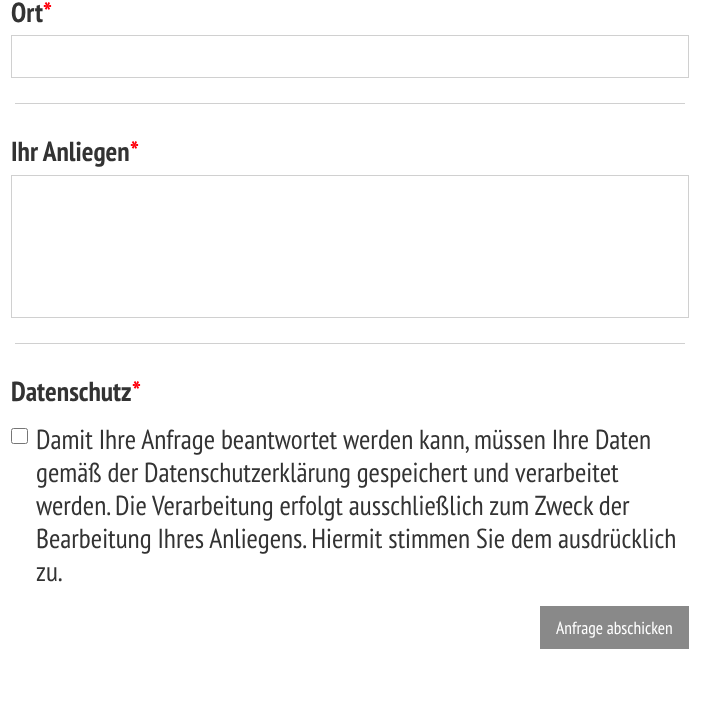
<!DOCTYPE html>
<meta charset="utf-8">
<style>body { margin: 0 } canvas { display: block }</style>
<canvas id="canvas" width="725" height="703"></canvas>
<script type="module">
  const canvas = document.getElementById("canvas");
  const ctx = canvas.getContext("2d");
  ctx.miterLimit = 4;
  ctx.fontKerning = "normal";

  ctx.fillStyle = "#ffffff";
  ctx.fillRect(0, 0, 725, 703);
  ctx.font = "bold 27.5px PT Sans Narrow";
  ctx.fillStyle = "#333333";
  ctx.fillText("Ort", 11, 22);
  ctx.fillStyle = "#ff000c";
  ctx.fillText("*", 43, 22);
  ctx.strokeStyle = "#d0d0d0";
  ctx.strokeRect(11.5, 35.5, 677, 42);
  ctx.fillStyle = "#d0d0d0";
  ctx.fillRect(15, 103, 670, 1);
  ctx.fillStyle = "#333333";
  ctx.fillText("Ihr Anliegen", 11, 161);
  ctx.fillStyle = "#ff000c";
  ctx.fillText("*", 130, 161);
  ctx.strokeRect(11.5, 175.5, 677, 142);
  ctx.fillStyle = "#d0d0d0";
  ctx.fillRect(15, 343, 670, 1);
  ctx.fillStyle = "#333333";
  ctx.fillText("Datenschutz", 11, 401);
  ctx.fillStyle = "#ff000c";
  ctx.fillText("*", 132, 401);
  ctx.beginPath();
  ctx.roundRect(11.5, 428.5, 16, 15, 2);
  ctx.strokeStyle = "#767676";
  ctx.stroke();
  ctx.font = "27.5px PT Sans Narrow";
  ctx.fillStyle = "#333333";
  ctx.fillText("Damit Ihre Anfrage beantwortet werden kann, müssen Ihre Daten", 36, 449);
  ctx.fillText("gemäß der Datenschutzerklärung gespeichert und verarbeitet", 36, 482);
  ctx.fillText("werden. Die Verarbeitung erfolgt ausschließlich zum Zweck der", 36, 515);
  ctx.fillText("Bearbeitung Ihres Anliegens. Hiermit stimmen Sie dem ausdrücklich", 36, 548);
  ctx.fillText("zu.", 36, 581);
  ctx.fillStyle = "#898989";
  ctx.fillRect(540, 606, 149, 43);
  ctx.font = "17.5px PT Sans Narrow";
  ctx.fillStyle = "#ffffff";
  ctx.fillText("Anfrage abschicken", 556, 634);
</script>
